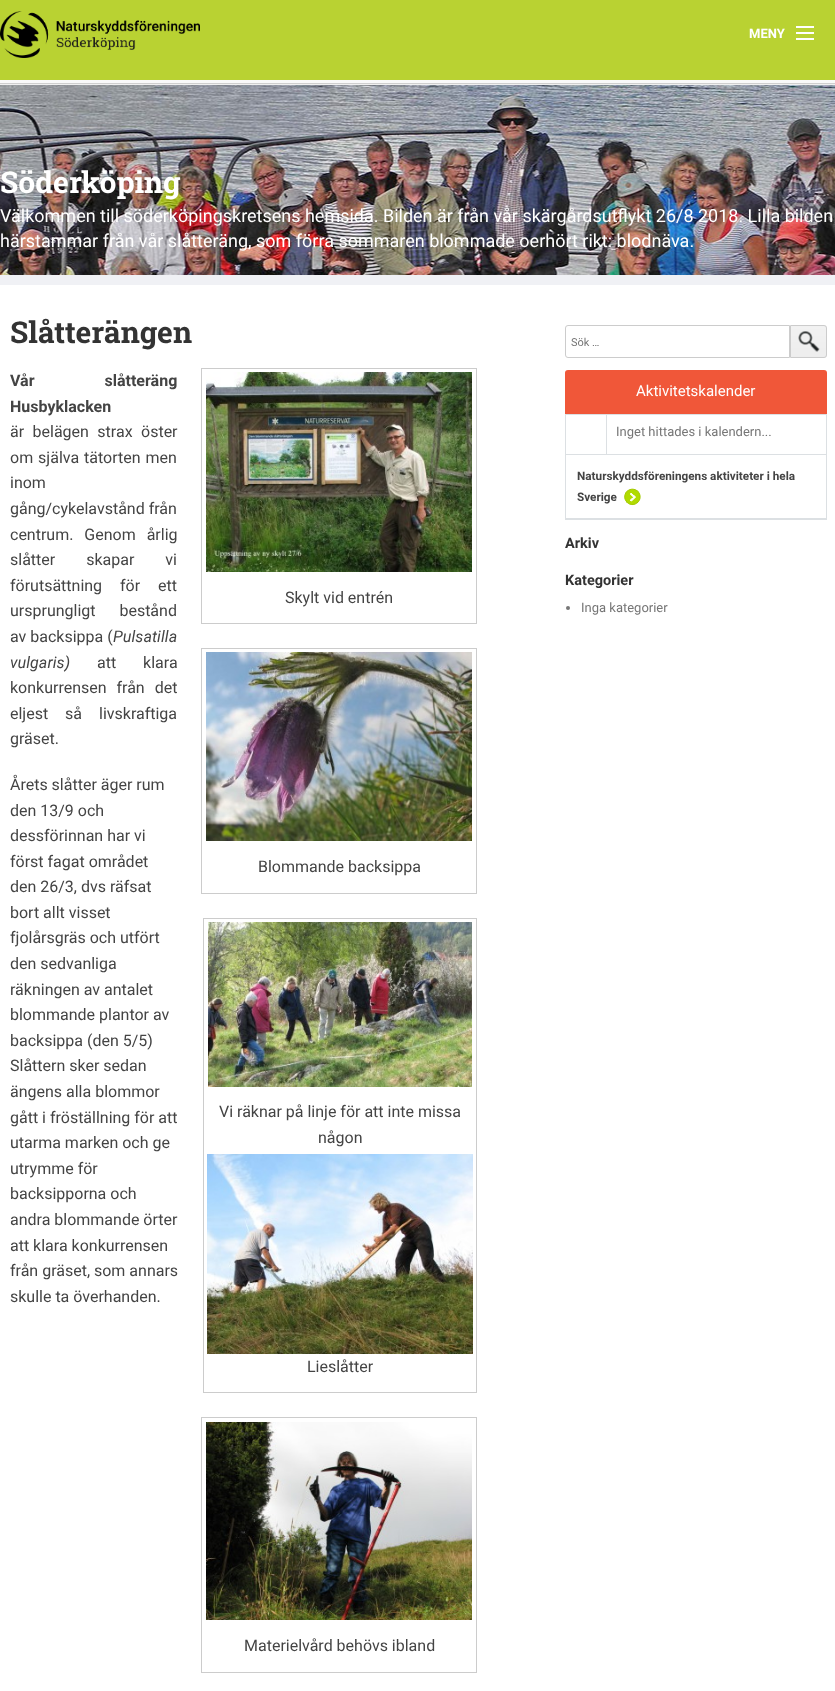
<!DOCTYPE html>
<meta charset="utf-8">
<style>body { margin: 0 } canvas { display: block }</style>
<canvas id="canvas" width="835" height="1691"></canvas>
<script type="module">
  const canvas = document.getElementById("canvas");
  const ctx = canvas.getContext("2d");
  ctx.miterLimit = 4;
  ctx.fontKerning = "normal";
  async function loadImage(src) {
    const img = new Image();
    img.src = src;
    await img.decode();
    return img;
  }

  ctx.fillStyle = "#ffffff";
  ctx.fillRect(0, 0, 835, 1691);
  ctx.drawImage(await loadImage("img1.png"), 0, 0, 835, 85);
  ctx.drawImage(await loadImage("img2.png"), 0, 11, 200, 47);
  ctx.fillRect(796, 38, 18, 2);
  ctx.fillRect(796, 32, 18, 2);
  ctx.fillRect(796, 26, 18, 2);
  ctx.font = "bold 13px Roboto";
  ctx.fillText("MENY", 749, 38);
  ctx.drawImage(await loadImage("img3.png"), 0, 85, 835, 190);
  ctx.fillStyle = "#f0f1f5";
  ctx.fillRect(0, 275, 835, 10);
  ctx.font = "bold 30px Roboto Slab";
  ctx.fillStyle = "#ffffff";
  ctx.fillText("Söderköping", 0, 193);
  ctx.font = "18px Roboto";
  ctx.fillText("Välkommen till söderköpingskretsens hemsida. Bilden är från vår skärgårdsutflykt 26/8 2018. Lilla bilden", 0, 222);
  ctx.fillText("härstammar från vår slåtteräng, som förra sommaren blommade oerhört rikt: blodnäva.", 0, 247);
  ctx.font = "bold 30px Roboto Slab";
  ctx.fillStyle = "#333333";
  ctx.fillText("Slåtterängen", 10, 343);
  ctx.wordSpacing = "66px";
  ctx.font = "bold 16px Roboto";
  ctx.fillStyle = "#444444";
  ctx.fillText("Vår slåtteräng", 10, 386);
  ctx.wordSpacing = "0px";
  ctx.fillText("Husbyklacken", 10, 412);
  ctx.wordSpacing = "4.5px";
  ctx.font = "16px Roboto";
  ctx.fillText("är belägen strax öster", 10, 437);
  ctx.wordSpacing = "1px";
  ctx.fillText("om själva tätorten men", 10, 463);
  ctx.wordSpacing = "0px";
  ctx.fillText("inom", 10, 488);
  ctx.fillText("gång/cykelavstånd från", 10, 514);
  ctx.wordSpacing = "7px";
  ctx.fillText("centrum. Genom årlig", 10, 540);
  ctx.wordSpacing = "27px";
  ctx.fillText("slåtter skapar vi", 10, 565);
  ctx.wordSpacing = "14px";
  ctx.fillText("förutsättning för ett", 10, 591);
  ctx.wordSpacing = "20px";
  ctx.fillText("ursprungligt bestånd", 10, 616);
  ctx.wordSpacing = "0px";
  ctx.fillText("av backsippa (", 10, 642);
  ctx.font = "italic 16px Roboto";
  ctx.fillText("Pulsatilla", 113, 642);
  ctx.fillText("vulgaris)", 10, 668);
  ctx.wordSpacing = "23px";
  ctx.font = "16px Roboto";
  ctx.fillText("att klara", 97, 668);
  ctx.wordSpacing = "6px";
  ctx.fillText("konkurrensen från det", 10, 693);
  ctx.wordSpacing = "13px";
  ctx.fillText("eljest så livskraftiga", 10, 719);
  ctx.wordSpacing = "0px";
  ctx.fillText("gräset.", 10, 744);
  ctx.strokeStyle = "#cccccc";
  ctx.strokeRect(201.5, 368.5, 275, 255);
  ctx.drawImage(await loadImage("img4.png"), 206, 372, 266, 200);
  ctx.fillText("Skylt vid entrén", 285, 603);
  ctx.fillText("Årets slåtter äger rum", 10, 790);
  ctx.fillText("den 13/9 och", 10, 816);
  ctx.fillText("dessförinnan har vi", 10, 841);
  ctx.fillText("först fagat området", 10, 867);
  ctx.fillText("den 26/3, dvs räfsat", 10, 892);
  ctx.fillText("bort allt visset", 10, 918);
  ctx.fillText("fjolårsgräs och utfört", 10, 943);
  ctx.fillText("den sedvanliga", 10, 969);
  ctx.fillText("räkningen av antalet", 10, 995);
  ctx.fillText("blommande plantor av", 10, 1020);
  ctx.fillText("backsippa (den 5/5)", 10, 1046);
  ctx.fillText("Slåttern sker sedan", 10, 1071);
  ctx.fillText("ängens alla blommor", 10, 1097);
  ctx.fillText("gått i fröställning för att", 10, 1123);
  ctx.fillText("utarma marken och ge", 10, 1148);
  ctx.fillText("utrymme för", 10, 1174);
  ctx.fillText("backsipporna och", 10, 1199);
  ctx.fillText("andra blommande örter", 10, 1225);
  ctx.fillText("att klara konkurrensen", 10, 1251);
  ctx.fillText("från gräset, som annars", 10, 1276);
  ctx.fillText("skulle ta överhanden.", 10, 1302);
  ctx.strokeRect(201.5, 648.5, 275, 245);
  ctx.drawImage(await loadImage("img5.png"), 206, 652, 266, 189);
  ctx.fillText("Blommande backsippa", 258, 872);
  ctx.strokeRect(203.5, 918.5, 273, 474);
  ctx.drawImage(await loadImage("img6.png"), 208, 922, 264, 165);
  ctx.fillText("Vi räknar på linje för att inte missa", 219, 1117);
  ctx.fillText("någon", 318, 1143);
  ctx.drawImage(await loadImage("img7.png"), 207, 1154, 266, 200);
  ctx.fillText("Lieslåtter", 307, 1372);
  ctx.strokeRect(201.5, 1417.5, 275, 255);
  ctx.drawImage(await loadImage("img8.png"), 206, 1422, 266, 198);
  ctx.fillText("Materielvård behövs ibland", 244, 1651);
  ctx.beginPath();
  ctx.roundRect(565.5, 325.5, 224, 32, [2.5, 0, 0, 2.5]);
  ctx.stroke();
  ctx.font = "11px Roboto";
  ctx.fillStyle = "#757575";
  ctx.fillText("Sök …", 571, 346);
  ctx.drawImage(await loadImage("img9.png"), 791, 325, 36, 33);
  ctx.beginPath();
  ctx.roundRect(790.5, 325.5, 36, 32, [0, 2.5, 2.5, 0]);
  ctx.stroke();
  ctx.fillStyle = "#dce0e3";
  ctx.fillRect(565, 518, 262, 2);
  ctx.fillStyle = "#f05739";
  ctx.beginPath();
  ctx.roundRect(565, 370, 262, 44, [3, 3, 0, 0]);
  ctx.fill();
  ctx.font = "15px Roboto";
  ctx.fillStyle = "#ffffff";
  ctx.fillText("Aktivitetskalender", 636, 396);
  ctx.fillStyle = "#dce0e3";
  ctx.fillRect(606, 414, 1, 40);
  ctx.fillRect(565, 414, 262, 1);
  ctx.fillRect(826, 414, 1, 40);
  ctx.fillRect(565, 414, 1, 40);
  ctx.font = "13px Roboto";
  ctx.fillStyle = "#757575";
  ctx.fillText("Inget hittades i kalendern...", 616, 436);
  ctx.fillStyle = "#dce0e3";
  ctx.fillRect(565, 454, 262, 1);
  ctx.fillRect(826, 454, 1, 64);
  ctx.fillRect(565, 454, 1, 64);
  ctx.font = "bold 11.75px Roboto";
  ctx.fillStyle = "#444444";
  ctx.fillText("Naturskyddsföreningens aktiviteter i hela", 577, 480);
  ctx.fillText("Sverige", 577, 501);
  ctx.drawImage(await loadImage("img10.png"), 624, 488, 17, 18);
  ctx.font = "bold 14.5px Roboto";
  ctx.fillStyle = "#333333";
  ctx.fillText("Arkiv", 565, 548);
  ctx.fillText("Kategorier", 565, 585);
  ctx.fillStyle = "#777777";
  ctx.beginPath();
  ctx.arc(568, 608, 2, 0, Math.PI * 2);
  ctx.fill();
  ctx.font = "13px Roboto";
  ctx.fillStyle = "#757575";
  ctx.fillText("Inga kategorier", 581, 612);
</script>
